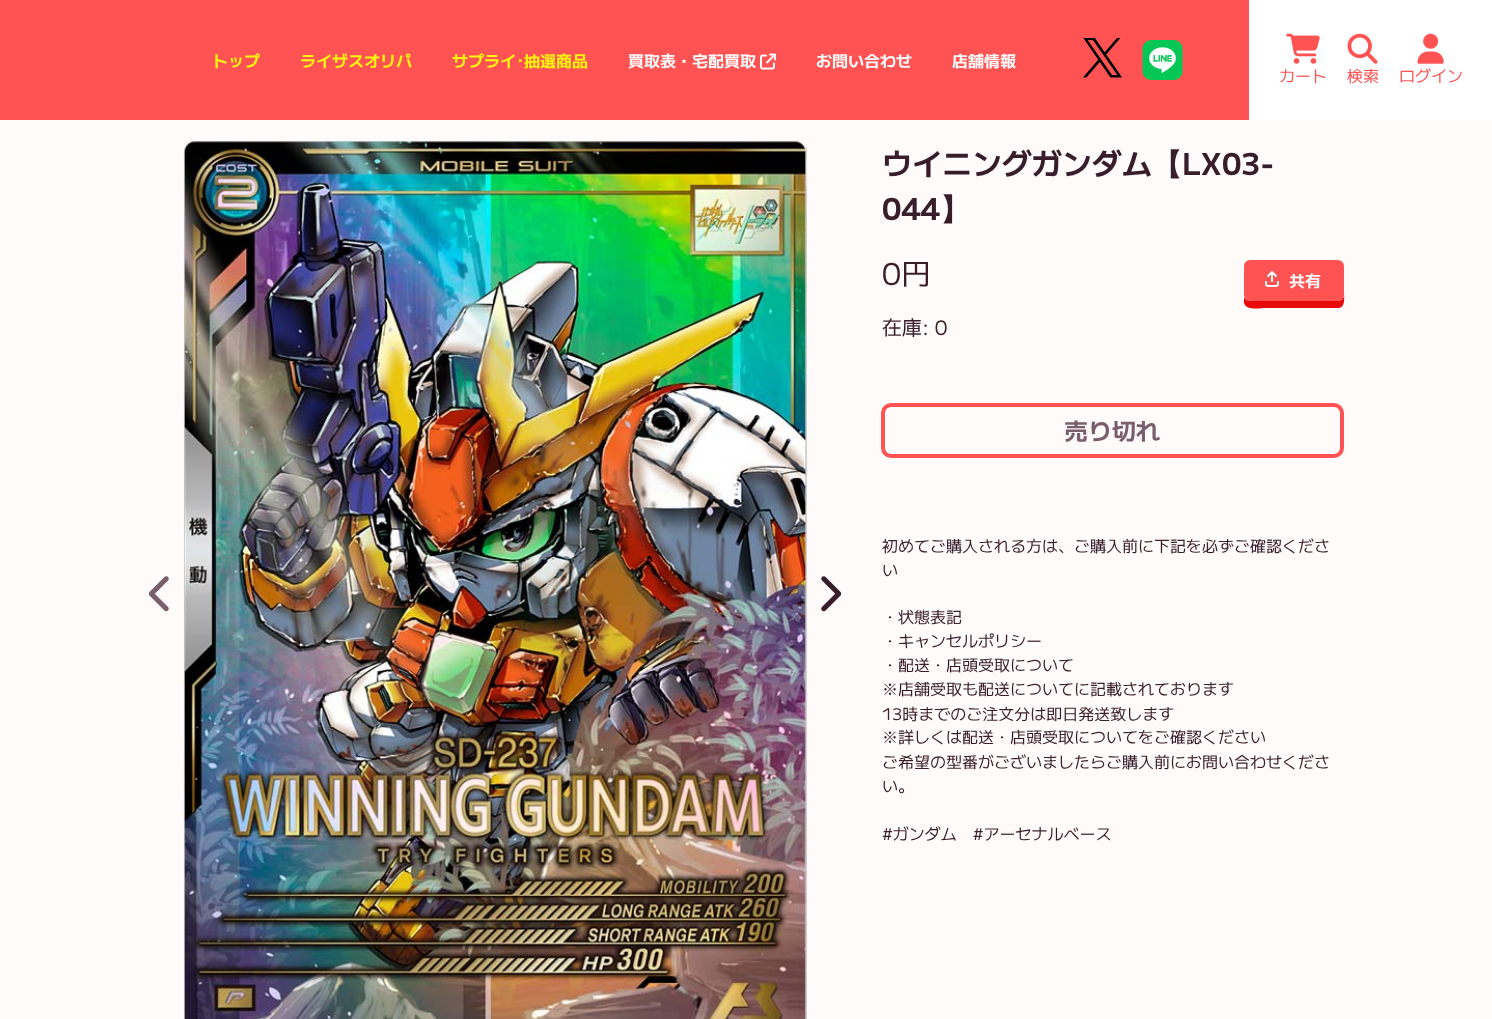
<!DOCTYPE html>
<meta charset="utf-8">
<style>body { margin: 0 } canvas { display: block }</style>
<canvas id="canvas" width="1492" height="1019"></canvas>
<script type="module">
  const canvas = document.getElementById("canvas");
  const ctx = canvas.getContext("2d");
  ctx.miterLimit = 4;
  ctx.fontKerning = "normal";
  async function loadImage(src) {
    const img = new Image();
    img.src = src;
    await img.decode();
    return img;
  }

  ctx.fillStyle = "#fffbfb";
  ctx.fillRect(0, 0, 1492, 1019);
  ctx.fillStyle = "#ff5353";
  ctx.fillRect(0, 0, 1249, 120);
  ctx.font = "bold 16px 'M PLUS 2'";
  ctx.fillStyle = "#fff511";
  ctx.fillText("トップ", 212, 67);
  ctx.fillText("ライザスオリパ", 300, 67);
  ctx.fillText("サプライ", 452, 67);
  ctx.font = "bold 16px IPAPGothic";
  ctx.fillText("･", 516, 67);
  ctx.font = "bold 16px 'M PLUS 2'";
  ctx.fillText("抽選商品", 524, 67);
  ctx.fillStyle = "#fffbfb";
  ctx.fillText("買取表・宅配買取", 628, 67);
  ctx.drawImage(await loadImage("img1.png"), 760, 53, 16, 17);
  ctx.fillText("お問い合わせ", 816, 67);
  ctx.fillText("店舗情報", 952, 67);
  ctx.drawImage(await loadImage("img2.png"), 1083, 38, 39, 40);
  ctx.drawImage(await loadImage("img3.png"), 1142, 40, 41, 40);
  ctx.fillStyle = "#ffffff";
  ctx.fillRect(1249, 0, 243, 120);
  ctx.drawImage(await loadImage("img4.png"), 1286, 33, 34, 31);
  ctx.font = "16px 'M PLUS 2'";
  ctx.fillStyle = "#ff5353";
  ctx.fillText("カート", 1279, 82);
  ctx.drawImage(await loadImage("img5.png"), 1347, 33, 31, 31);
  ctx.fillText("検索", 1347, 82);
  ctx.drawImage(await loadImage("img6.png"), 1417, 33, 27, 31);
  ctx.fillText("ログイン", 1399, 82);
  ctx.drawImage(await loadImage("img7.png"), 149, 576, 20, 36);
  ctx.drawImage(await loadImage("img8.png"), 183, 141, 624, 878);
  ctx.drawImage(await loadImage("img9.png"), 806, 146, 1, 873);
  ctx.drawImage(await loadImage("img10.png"), 821, 576, 20, 36);
  ctx.font = "bold 30px 'M PLUS 2'";
  ctx.fillStyle = "#381d2a";
  ctx.fillText("ウイニングガンダム", 882, 175);
  ctx.font = "bold 30px WenQuanYi Zen Hei";
  ctx.fillText("【", 1152, 175);
  ctx.font = "bold 30px 'M PLUS 2'";
  ctx.fillText("LX03-", 1182, 175);
  ctx.fillText("044", 882, 220);
  ctx.font = "bold 30px WenQuanYi Zen Hei";
  ctx.fillText("】", 940, 220);
  ctx.font = "30px 'M PLUS 2'";
  ctx.fillText("0円", 882, 285);
  ctx.fillStyle = "#e90b0b";
  ctx.beginPath();
  ctx.moveTo(1244, 297);
  ctx.lineTo(1244, 303);
  ctx.bezierCurveTo(1246, 311, 1261, 308, 1265, 308);
  ctx.lineTo(1338, 308);
  ctx.bezierCurveTo(1346, 308, 1344, 297, 1344, 292);
  ctx.lineTo(1344, 270);
  ctx.lineTo(1344, 295);
  ctx.bezierCurveTo(1344, 298, 1341, 301, 1338, 301);
  ctx.lineTo(1250, 301);
  ctx.bezierCurveTo(1247, 301, 1245, 299, 1244, 297);
  ctx.closePath();
  ctx.fill();
  ctx.fillStyle = "#ff5353";
  ctx.beginPath();
  ctx.roundRect(1245.5, 261.5, 97, 38, 4.5);
  ctx.fill();
  ctx.strokeStyle = "#ff5353";
  ctx.lineWidth = 3;
  ctx.stroke();
  ctx.drawImage(await loadImage("img11.png"), 1265, 271, 14, 16);
  ctx.font = "bold 16px 'M PLUS 2'";
  ctx.fillStyle = "#fffbfb";
  ctx.fillText("共有", 1289, 287);
  ctx.font = "20px 'M PLUS 2'";
  ctx.fillStyle = "#381d2a";
  ctx.fillText("在庫: 0", 882, 335);
  ctx.beginPath();
  ctx.roundRect(883, 405, 459, 51, 8);
  ctx.lineWidth = 4;
  ctx.stroke();
  ctx.font = "bold 24px 'M PLUS 2'";
  ctx.fillStyle = "#795e6b";
  ctx.fillText("売り切れ", 1064, 440);
  ctx.font = "16px 'M PLUS 2'";
  ctx.fillStyle = "#381d2a";
  ctx.fillText("初めてご購入される方は、ご購入前に下記を必ずご確認くださ", 882, 552);
  ctx.fillText("い", 882, 576);
  ctx.fillText("・状態表記", 882, 623);
  ctx.fillText("・キャンセルポリシー", 882, 647);
  ctx.fillText("・配送・店頭受取について", 882, 671);
  ctx.font = "500 16px WenQuanYi Zen Hei";
  ctx.fillText("※", 882, 695);
  ctx.font = "16px 'M PLUS 2'";
  ctx.fillText("店舗受取も配送についてに記載されております", 898, 695);
  ctx.fillText("13時までのご注文分は即日発送致します", 882, 720);
  ctx.font = "500 16px WenQuanYi Zen Hei";
  ctx.fillText("※", 882, 743);
  ctx.font = "16px 'M PLUS 2'";
  ctx.fillText("詳しくは配送・店頭受取についてをご確認ください", 898, 743);
  ctx.fillText("ご希望の型番がございましたらご購入前にお問い合わせくださ", 882, 768);
  ctx.fillText("い。", 882, 792);
  ctx.fillText("#ガンダム　#アーセナルベース", 882, 840);
</script>
